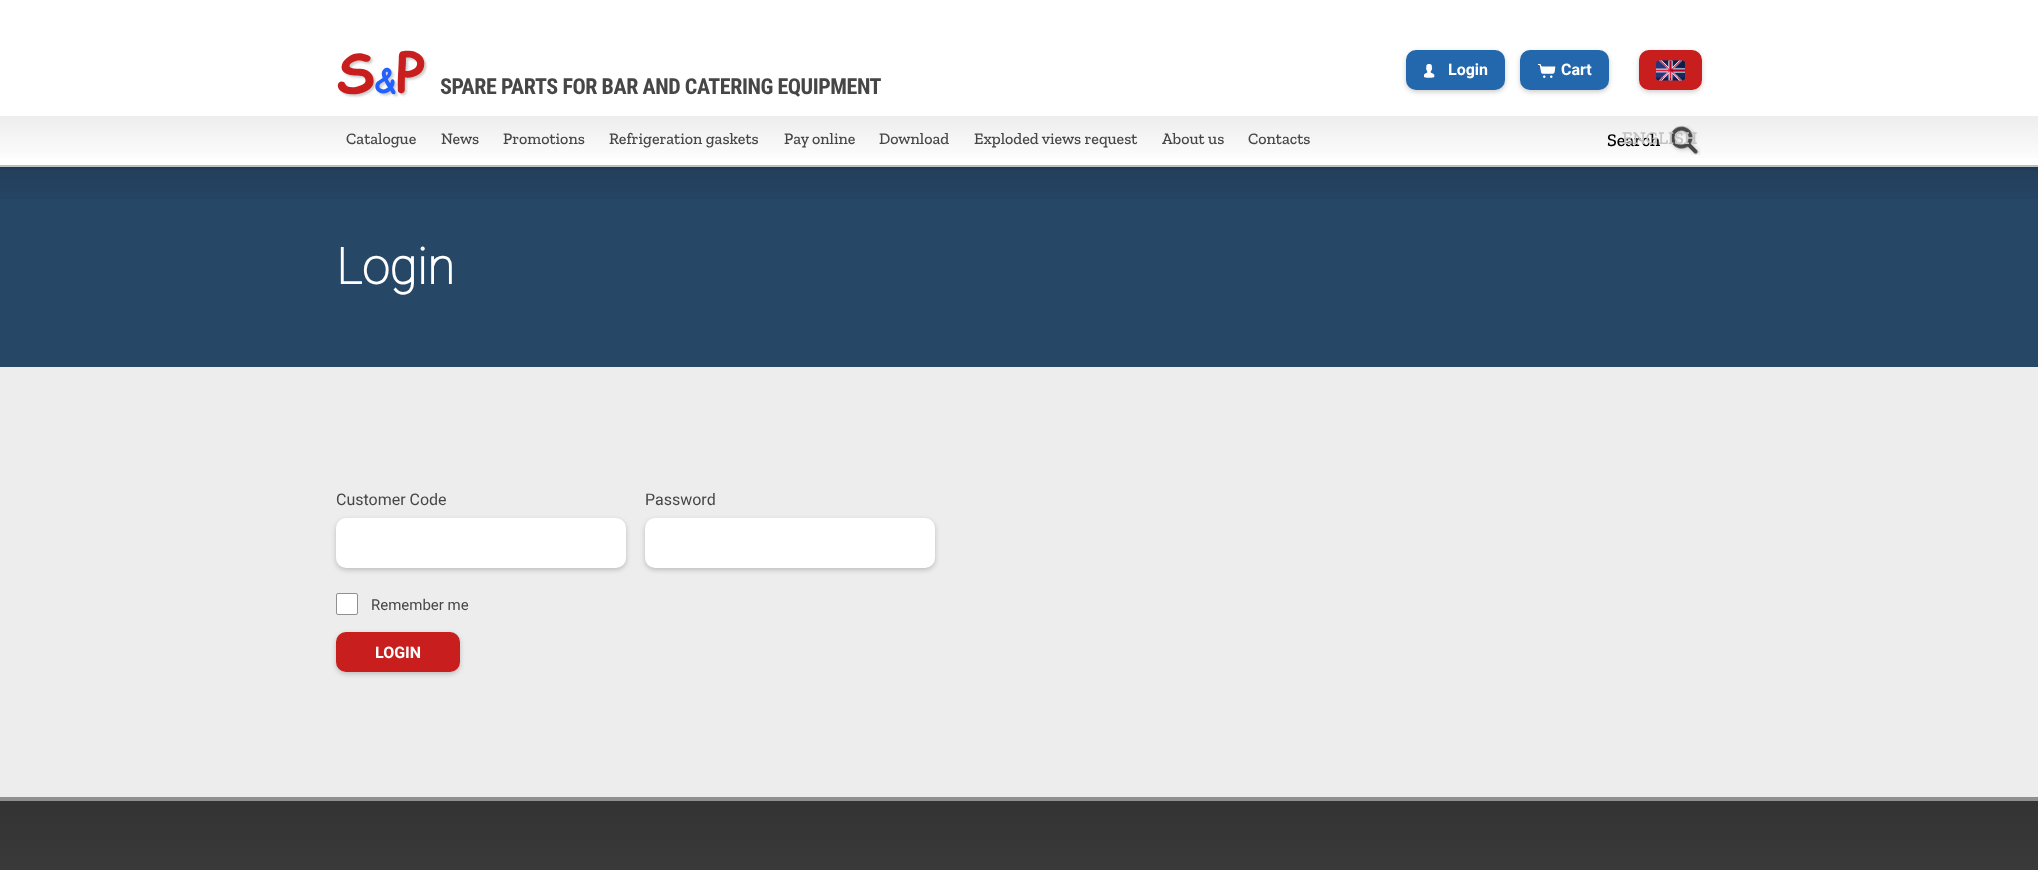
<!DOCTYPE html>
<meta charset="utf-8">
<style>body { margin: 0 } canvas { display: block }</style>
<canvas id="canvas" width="2038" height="870"></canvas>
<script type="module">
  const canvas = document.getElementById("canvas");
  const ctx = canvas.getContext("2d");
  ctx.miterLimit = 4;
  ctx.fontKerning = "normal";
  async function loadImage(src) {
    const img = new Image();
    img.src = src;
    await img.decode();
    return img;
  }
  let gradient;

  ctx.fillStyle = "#ffffff";
  ctx.fillRect(0, 0, 2038, 870);
  gradient = ctx.createLinearGradient(1019, 0, 1019, 165);
  gradient.addColorStop(0, "#ffffff");
  gradient.addColorStop(0.7, "#ffffff");
  gradient.addColorStop(0.7, "#ededed");
  gradient.addColorStop(1, "#ffffff");
  ctx.fillStyle = gradient;
  ctx.fillRect(0, 115, 2038, 43);
  ctx.fillStyle = "rgba(0, 0, 0, 0.2)";
  ctx.filter = "blur(2.5px)";
  ctx.beginPath();
  ctx.roundRect(1406, 52, 99, 40, 10);
  ctx.fill();
  ctx.filter = "none";
  ctx.fillStyle = "#2368ad";
  ctx.beginPath();
  ctx.roundRect(1407, 51, 97, 38, 9);
  ctx.fill();
  ctx.strokeStyle = "#2368ad";
  ctx.lineWidth = 2;
  ctx.stroke();
  ctx.drawImage(await loadImage("img1.png"), 1423, 64, 12, 14);
  ctx.font = "bold 16px 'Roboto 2'";
  ctx.fillStyle = "#ffffff";
  ctx.fillText("Login", 1448, 75);
  ctx.fillStyle = "rgba(0, 0, 0, 0.2)";
  ctx.filter = "blur(2.5px)";
  ctx.beginPath();
  ctx.roundRect(1520, 52, 89, 40, 10);
  ctx.fill();
  ctx.filter = "none";
  ctx.fillStyle = "#2368ad";
  ctx.beginPath();
  ctx.roundRect(1521, 51, 87, 38, 9);
  ctx.fill();
  ctx.stroke();
  ctx.drawImage(await loadImage("img2.png"), 1537, 64, 19, 14);
  ctx.fillStyle = "#ffffff";
  ctx.fillText("Cart", 1561, 75);
  ctx.fillStyle = "rgba(0, 0, 0, 0.2)";
  ctx.filter = "blur(2.5px)";
  ctx.beginPath();
  ctx.roundRect(1639, 52, 63, 40, 10);
  ctx.fill();
  ctx.filter = "none";
  ctx.fillStyle = "#c91e1e";
  ctx.beginPath();
  ctx.roundRect(1640, 51, 61, 38, 9);
  ctx.fill();
  ctx.strokeStyle = "#c91e1e";
  ctx.stroke();
  ctx.drawImage(await loadImage("img3.png"), 1656, 60, 29, 21);
  ctx.drawImage(await loadImage("img4.png"), 337, 50, 91, 48);
  ctx.letterSpacing = "-0.45px";
  ctx.font = "bold 22px Roboto Condensed";
  ctx.fillStyle = "#464646";
  ctx.fillText("SPARE PARTS FOR BAR AND CATERING EQUIPMENT", 440, 94);
  ctx.letterSpacing = "0px";
  ctx.font = "500 16px Zilla Slab";
  ctx.fillText("Catalogue", 346, 144);
  ctx.fillText("News", 441, 144);
  ctx.fillText("Promotions", 503, 144);
  ctx.fillText("Refrigeration gaskets", 609, 144);
  ctx.fillText("Pay online", 784, 144);
  ctx.fillText("Download", 879, 144);
  ctx.fillText("Exploded views request", 974, 144);
  ctx.fillText("About us", 1162, 144);
  ctx.fillText("Contacts", 1248, 144);
  ctx.drawImage(await loadImage("img5.png"), 1669, 125, 32, 30);
  ctx.font = "500 18px Zilla Slab";
  ctx.fillStyle = "#000000";
  ctx.fillText("Search", 1607, 146);
  ctx.fillStyle = "#274767";
  ctx.fillRect(0, 167, 2038, 200);
  ctx.drawImage(await loadImage("img6.png"), 0, 165, 2038, 34);
  ctx.fillStyle = "#c3c3c3";
  ctx.fillText("ENGLISH", 1622, 144);
  ctx.font = "bold 50px Roboto";
  ctx.fillStyle = "#ffffff";
  ctx.fillText("Login", 336, 284);
  ctx.fillStyle = "#ededed";
  ctx.fillRect(0, 367, 2038, 430);
  ctx.font = "16px Roboto";
  ctx.fillStyle = "#464646";
  ctx.fillText("Customer Code", 336, 505);
  ctx.fillStyle = "rgba(0, 0, 0, 0.2)";
  ctx.filter = "blur(2.5px)";
  ctx.beginPath();
  ctx.roundRect(336, 520, 290, 50, 10);
  ctx.fill();
  ctx.filter = "none";
  ctx.fillStyle = "#ffffff";
  ctx.beginPath();
  ctx.roundRect(336, 518, 290, 50, 10);
  ctx.fill();
  ctx.fillStyle = "#464646";
  ctx.fillText("Password", 645, 505);
  ctx.fillStyle = "rgba(0, 0, 0, 0.2)";
  ctx.filter = "blur(2.5px)";
  ctx.beginPath();
  ctx.roundRect(645, 520, 290, 50, 10);
  ctx.fill();
  ctx.filter = "none";
  ctx.fillStyle = "#ffffff";
  ctx.beginPath();
  ctx.roundRect(645, 518, 290, 50, 10);
  ctx.fill();
  ctx.beginPath();
  ctx.roundRect(336.5, 593.5, 21, 21, 1.5);
  ctx.fill();
  ctx.strokeStyle = "#909090";
  ctx.lineWidth = 1;
  ctx.stroke();
  ctx.font = "15px Roboto";
  ctx.fillStyle = "#464646";
  ctx.fillText("Remember me", 371, 610);
  ctx.fillStyle = "rgba(0, 0, 0, 0.2)";
  ctx.filter = "blur(2.5px)";
  ctx.beginPath();
  ctx.roundRect(336, 634, 124, 40, 10);
  ctx.fill();
  ctx.filter = "none";
  ctx.fillStyle = "#c91e1e";
  ctx.beginPath();
  ctx.roundRect(337, 633, 122, 38, 9);
  ctx.fill();
  ctx.strokeStyle = "#c91e1e";
  ctx.lineWidth = 2;
  ctx.stroke();
  ctx.font = "bold 16px 'Roboto 2'";
  ctx.fillStyle = "#ffffff";
  ctx.fillText("LOGIN", 375, 658);
  gradient = ctx.createLinearGradient(1019, 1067, 1019, 801);
  gradient.addColorStop(0, "#4d4c4c");
  gradient.addColorStop(1, "#333333");
  ctx.fillStyle = gradient;
  ctx.fillRect(0, 801, 2038, 69);
  ctx.fillStyle = "#909090";
  ctx.fillRect(0, 797, 2038, 4);
</script>
